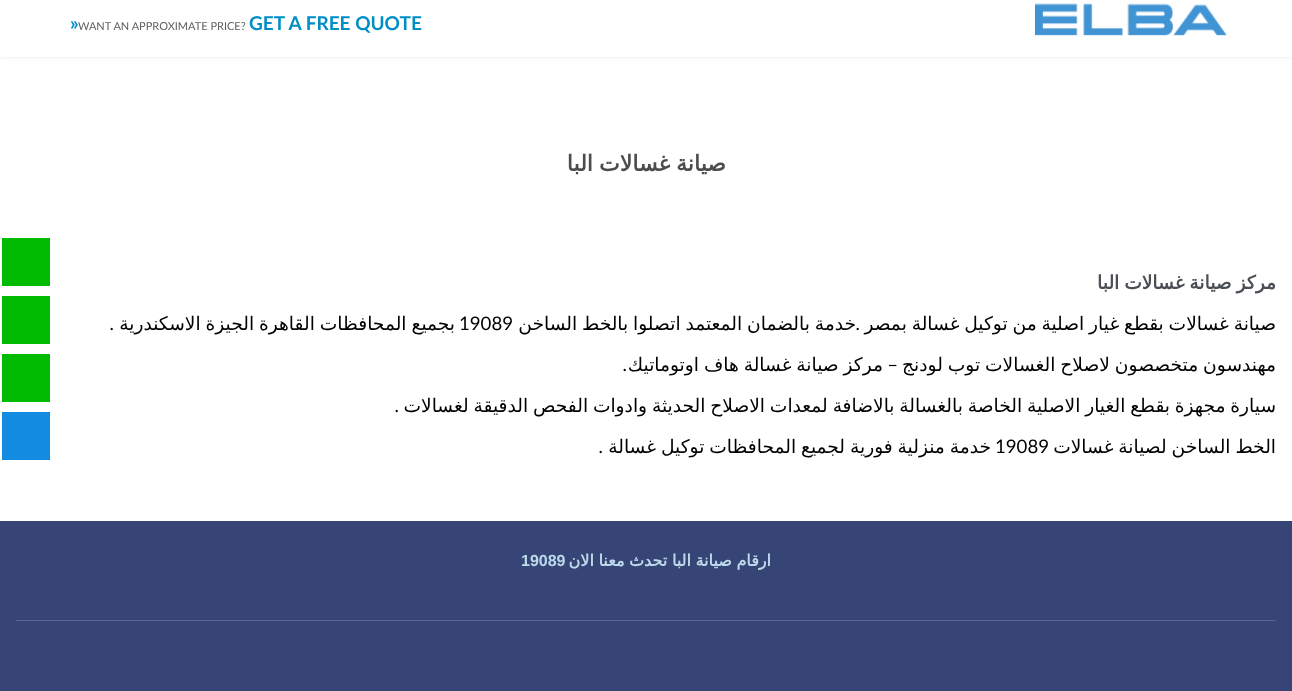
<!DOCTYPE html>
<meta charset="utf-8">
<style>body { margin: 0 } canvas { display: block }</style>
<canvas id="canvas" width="1292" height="691"></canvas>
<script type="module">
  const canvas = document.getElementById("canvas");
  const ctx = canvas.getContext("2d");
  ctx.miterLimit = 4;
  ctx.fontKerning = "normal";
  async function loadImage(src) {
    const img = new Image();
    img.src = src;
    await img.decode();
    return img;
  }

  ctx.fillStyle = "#ffffff";
  ctx.fillRect(0, 0, 1292, 691);
  ctx.fillStyle = "rgba(0, 0, 0, 0.04)";
  ctx.filter = "blur(1px)";
  ctx.beginPath();
  ctx.rect(0, -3, 1292, 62);
  ctx.fill();
  ctx.filter = "none";
  ctx.fillStyle = "#ffffff";
  ctx.fillRect(0, 0, 1292, 57);
  ctx.drawImage(await loadImage("img1.png"), 1035, 3, 192, 33);
  ctx.font = "bold 19px Lato";
  ctx.fillStyle = "#008ec6";
  ctx.fillText("GET A FREE QUOTE", 249, 30);
  ctx.font = "11px Lato";
  ctx.fillStyle = "#5f5f5f";
  ctx.fillText("WANT AN APPROXIMATE PRICE?", 78, 30);
  ctx.font = "bold 19px Lato";
  ctx.fillStyle = "#008ec6";
  ctx.fillText("»", 70, 30);
  ctx.wordSpacing = "-1px";
  ctx.direction = "rtl";
  ctx.font = "bold 22px DejaVu Sans";
  ctx.fillStyle = "#4d4d4d";
  ctx.fillText("صيانة غسالات البا", 726, 171);
  ctx.font = "bold 18.65px DejaVu Sans";
  ctx.fillStyle = "#4a4f55";
  ctx.fillText("مركز صيانة غسالات البا", 1276, 289);
  ctx.wordSpacing = "-1.1px";
  ctx.font = "18.65px DejaVu Sans";
  ctx.fillStyle = "#000000";
  ctx.fillText("صيانة غسالات بقطع غيار اصلية من توكيل غسالة بمصر", 1276, 330);
  ctx.fillText("خدمة بالضمان المعتمد اتصلوا بالخط الساخن", 856, 330);
  ctx.wordSpacing = "0px";
  ctx.direction = "ltr";
  ctx.font = "18.65px Lato";
  ctx.fillText("19089", 459, 330);
  ctx.wordSpacing = "-1px";
  ctx.direction = "rtl";
  ctx.font = "18.65px DejaVu Sans";
  ctx.fillText("بجميع المحافظات القاهرة الجيزة الاسكندرية", 455, 330);
  ctx.wordSpacing = "0px";
  ctx.font = "18.65px Lato";
  ctx.fillText(".", 114, 330);
  ctx.fillText(".", 860, 330);
  ctx.wordSpacing = "-1px";
  ctx.font = "18.65px DejaVu Sans";
  ctx.fillText("مهندسون متخصصون لاصلاح الغسالات توب لودنج", 1276, 371);
  ctx.wordSpacing = "0px";
  ctx.font = "18.65px Lato";
  ctx.fillText("–", 898, 371);
  ctx.wordSpacing = "-1px";
  ctx.font = "18.65px DejaVu Sans";
  ctx.fillText("مركز صيانة غسالة هاف اوتوماتيك", 883, 371);
  ctx.wordSpacing = "0px";
  ctx.font = "18.65px Lato";
  ctx.fillText(".", 627, 371);
  ctx.wordSpacing = "-1.1px";
  ctx.font = "18.65px DejaVu Sans";
  ctx.fillText("سيارة مجهزة بقطع الغيار الاصلية الخاصة بالغسالة بالاضافة لمعدات الاصلاح الحديثة وادوات الفحص الدقيقة لغسالات", 1276, 412);
  ctx.wordSpacing = "0px";
  ctx.font = "18.65px Lato";
  ctx.fillText(".", 399, 412);
  ctx.wordSpacing = "-1px";
  ctx.font = "18.65px DejaVu Sans";
  ctx.fillText("الخط الساخن لصيانة غسالات", 1276, 453);
  ctx.wordSpacing = "0px";
  ctx.direction = "ltr";
  ctx.font = "18.65px Lato";
  ctx.fillText("19089", 995, 453);
  ctx.wordSpacing = "-1px";
  ctx.direction = "rtl";
  ctx.font = "18.65px DejaVu Sans";
  ctx.fillText("خدمة منزلية فورية لجميع المحافظات توكيل غسالة", 991, 453);
  ctx.wordSpacing = "0px";
  ctx.font = "18.65px Lato";
  ctx.fillText(".", 603, 453);
  ctx.fillStyle = "#364576";
  ctx.fillRect(0, 521, 1292, 170);
  ctx.fillStyle = "#5b678e";
  ctx.fillRect(16, 620, 1260, 1);
  ctx.wordSpacing = "-0.5px";
  ctx.font = "bold 16px DejaVu Sans";
  ctx.fillStyle = "#bddaec";
  ctx.fillText("ارقام صيانة البا تحدث معنا الان", 771, 566);
  ctx.wordSpacing = "0px";
  ctx.direction = "ltr";
  ctx.font = "bold 16px Liberation Sans";
  ctx.fillText("19089", 521, 566);
  ctx.fillStyle = "#00bb00";
  ctx.fillRect(2, 238, 48, 48);
  ctx.fillRect(2, 296, 48, 48);
  ctx.fillRect(2, 354, 48, 48);
  ctx.fillStyle = "#128be0";
  ctx.fillRect(2, 412, 48, 48);
</script>
